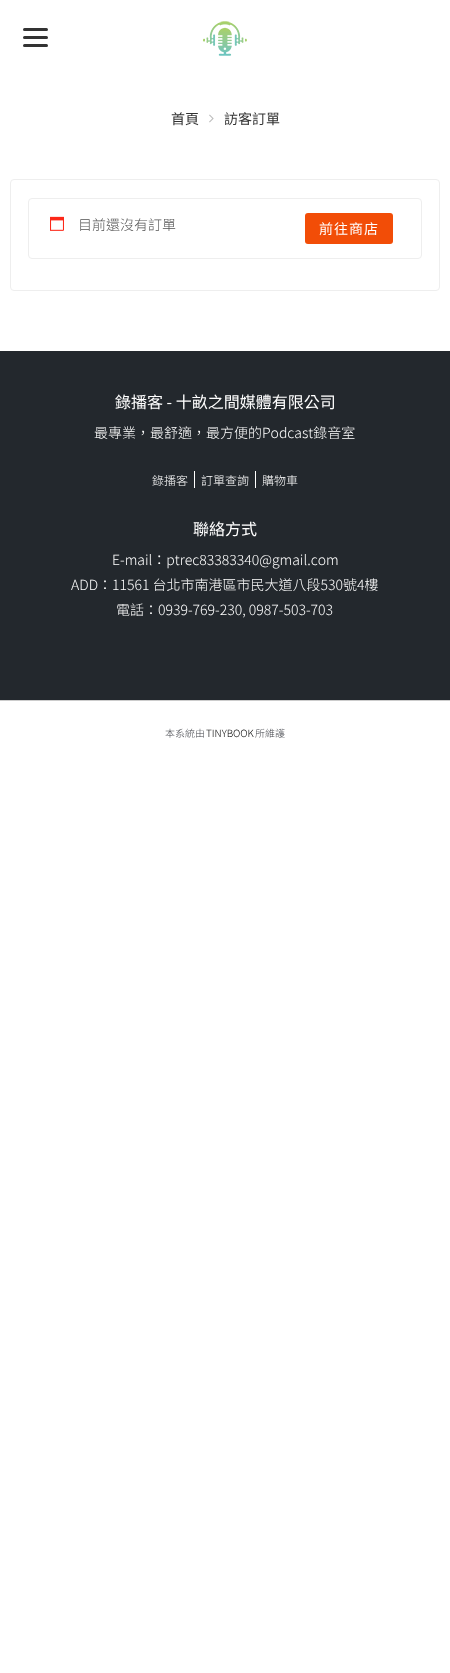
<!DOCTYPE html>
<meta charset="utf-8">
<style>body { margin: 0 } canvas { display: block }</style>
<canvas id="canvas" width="450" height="1673"></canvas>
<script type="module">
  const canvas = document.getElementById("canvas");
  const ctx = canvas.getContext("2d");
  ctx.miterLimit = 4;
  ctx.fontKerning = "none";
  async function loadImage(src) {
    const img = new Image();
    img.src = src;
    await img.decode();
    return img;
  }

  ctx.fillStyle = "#ffffff";
  ctx.fillRect(0, 0, 450, 1673);
  ctx.fillStyle = "#333333";
  ctx.beginPath();
  ctx.roundRect(23, 36, 25, 3, 1.5);
  ctx.fill();
  ctx.beginPath();
  ctx.roundRect(23, 28, 25, 3, 1.5);
  ctx.fill();
  ctx.beginPath();
  ctx.roundRect(23, 44, 25, 3, 1.5);
  ctx.fill();
  ctx.drawImage(await loadImage("img1.png"), 203, 21, 44, 35);
  ctx.font = "14px Noto Sans TC";
  ctx.fillStyle = "#323232";
  ctx.fillText("首頁", 171, 124);
  ctx.drawImage(await loadImage("img2.png"), 209, 114, 5, 9);
  ctx.fillText("訪客訂單", 224, 124);
  ctx.beginPath();
  ctx.roundRect(10.5, 179.5, 429, 111, 3.5);
  ctx.strokeStyle = "#eeeeee";
  ctx.stroke();
  ctx.beginPath();
  ctx.roundRect(28.5, 198.5, 393, 60, 3.5);
  ctx.stroke();
  ctx.drawImage(await loadImage("img3.png"), 50, 216, 14, 15);
  ctx.font = "300 14px Noto Sans TC";
  ctx.fillStyle = "#515151";
  ctx.fillText("目前還沒有訂單", 78, 230);
  ctx.fillStyle = "#f24d07";
  ctx.beginPath();
  ctx.roundRect(305, 213, 88, 31, 3);
  ctx.fill();
  ctx.letterSpacing = "1px";
  ctx.font = "14px Noto Sans TC";
  ctx.fillStyle = "#ffffff";
  ctx.fillText("前往商店", 319, 234);
  ctx.fillStyle = "#23282d";
  ctx.fillRect(0, 351, 450, 349);
  ctx.letterSpacing = "0px";
  ctx.font = "16px Noto Sans TC";
  ctx.fillStyle = "#ffffff";
  ctx.fillText("錄播客 - 十畝之間媒體有限公司", 115, 408);
  ctx.font = "300 14px Noto Sans TC";
  ctx.fillText("最專業，最舒適，最方便的Podcast錄音室", 94, 438);
  ctx.font = "300 12px Noto Sans TC";
  ctx.fillText("錄播客", 152, 485);
  ctx.fillText("訂單查詢", 201, 485);
  ctx.fillRect(194, 471, 1, 17);
  ctx.fillText("購物車", 262, 485);
  ctx.fillRect(255, 471, 1, 17);
  ctx.font = "16px Noto Sans TC";
  ctx.fillText("聯絡方式", 193, 535);
  ctx.font = "300 14px Noto Sans TC";
  ctx.fillText("E-mail：ptrec83383340@gmail.com", 112, 565);
  ctx.fillText("ADD：11561 台北市南港區市民大道八段530號4樓", 71, 590);
  ctx.fillText("電話：0939-769-230, 0987-503-703", 116, 615);
  ctx.fillStyle = "#cccccc";
  ctx.fillRect(0, 700, 450, 1);
  ctx.font = "300 10px Noto Sans TC";
  ctx.fillStyle = "#43454b";
  ctx.fillText("本系統由", 165, 737);
  ctx.fillStyle = "#000000";
  ctx.fillText("TINYBOOK", 206, 737);
  ctx.fillStyle = "#43454b";
  ctx.fillText("所維護", 255, 737);
</script>
